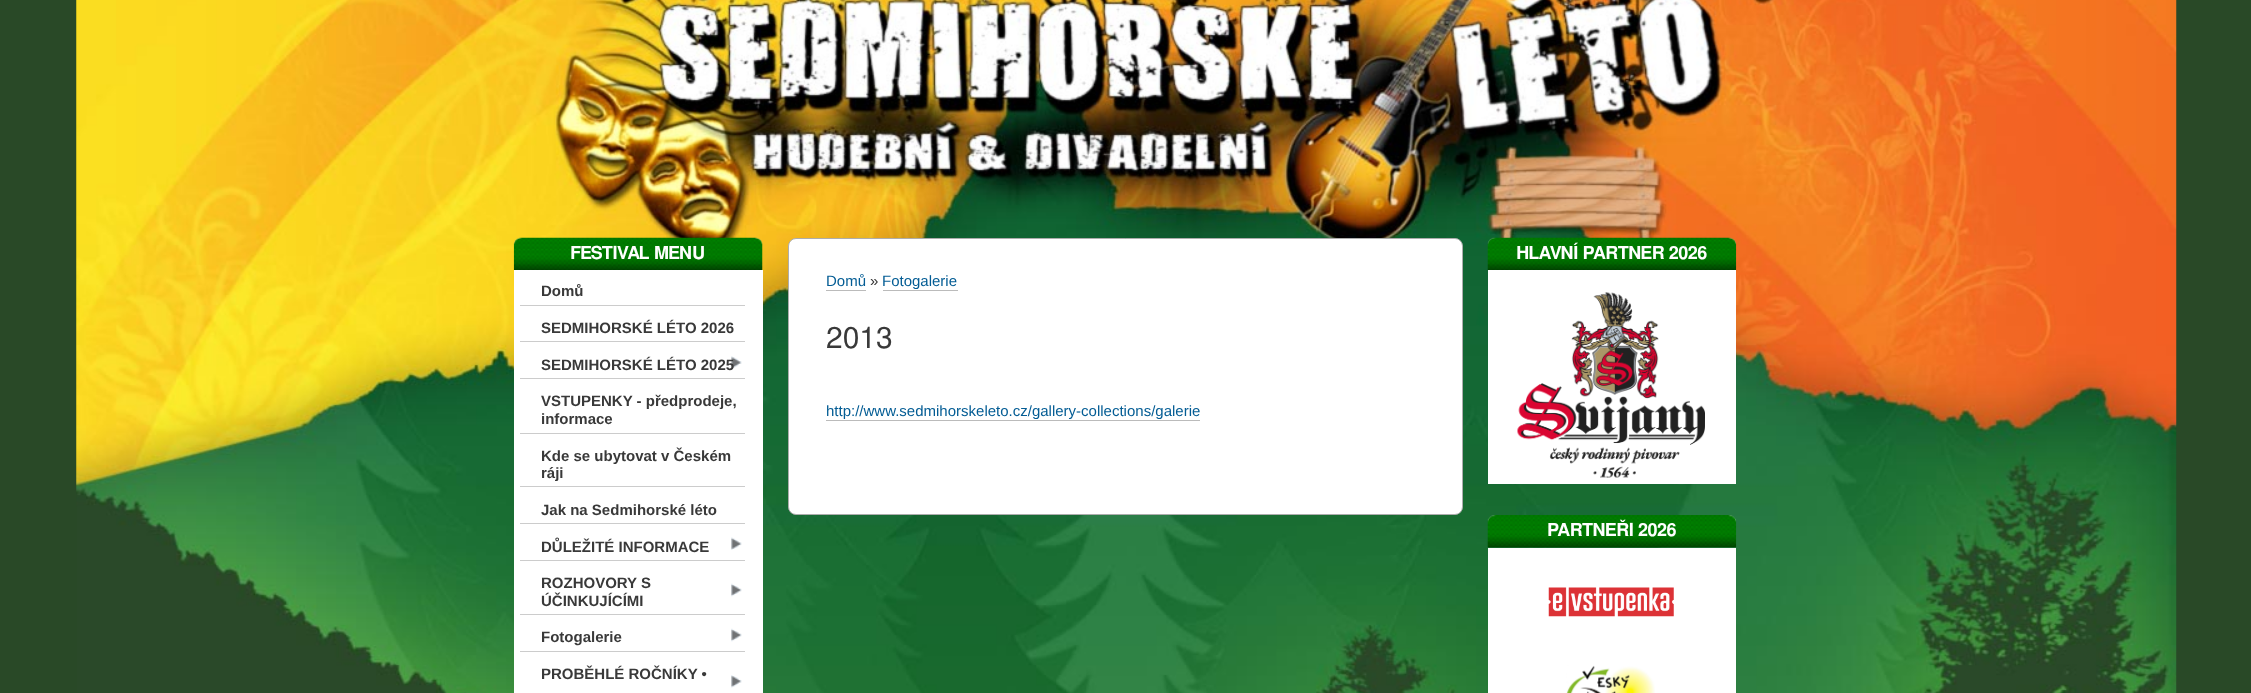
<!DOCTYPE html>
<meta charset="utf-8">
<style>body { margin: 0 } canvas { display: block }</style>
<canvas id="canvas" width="2251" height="693"></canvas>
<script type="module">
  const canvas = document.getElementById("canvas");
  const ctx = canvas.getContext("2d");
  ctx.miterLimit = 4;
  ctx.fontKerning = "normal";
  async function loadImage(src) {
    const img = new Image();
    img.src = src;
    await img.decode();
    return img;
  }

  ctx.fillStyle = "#294927";
  ctx.fillRect(0, 0, 2251, 693);
  ctx.drawImage(await loadImage("img1.png"), 76, 0, 2101, 693);
  ctx.drawImage(await loadImage("img2.png"), 513, 237, 250, 33);
  ctx.letterSpacing = "-0.5px";
  ctx.font = "600 18px FreeSans";
  ctx.fillStyle = "#ffffff";
  ctx.fillText("FESTIVAL MENU", 570, 259);
  ctx.fillRect(514, 270, 249, 423);
  ctx.fillStyle = "#cccccc";
  ctx.fillRect(520, 305, 225, 1);
  ctx.letterSpacing = "0px";
  ctx.font = "bold 15px Liberation Sans";
  ctx.fillStyle = "#393939";
  ctx.fillText("Domů", 541, 296);
  ctx.fillStyle = "#cccccc";
  ctx.fillRect(520, 341, 225, 1);
  ctx.fillStyle = "#393939";
  ctx.fillText("SEDMIHORSKÉ LÉTO 2026", 541, 333);
  ctx.drawImage(await loadImage("img3.png"), 731, 356, 11, 13);
  ctx.fillStyle = "#cccccc";
  ctx.fillRect(520, 378, 225, 1);
  ctx.fillStyle = "#393939";
  ctx.fillText("SEDMIHORSKÉ LÉTO 2025", 541, 370);
  ctx.fillStyle = "#cccccc";
  ctx.fillRect(520, 433, 225, 1);
  ctx.fillStyle = "#393939";
  ctx.fillText("VSTUPENKY - předprodeje,", 541, 406);
  ctx.fillText("informace", 541, 424);
  ctx.fillStyle = "#cccccc";
  ctx.fillRect(520, 486, 225, 1);
  ctx.fillStyle = "#393939";
  ctx.fillText("Kde se ubytovat v Českém", 541, 461);
  ctx.fillText("ráji", 541, 478);
  ctx.fillStyle = "#cccccc";
  ctx.fillRect(520, 523, 225, 1);
  ctx.fillStyle = "#393939";
  ctx.fillText("Jak na Sedmihorské léto", 541, 515);
  ctx.drawImage(await loadImage("img4.png"), 731, 537, 11, 13);
  ctx.fillStyle = "#cccccc";
  ctx.fillRect(520, 560, 225, 1);
  ctx.fillStyle = "#393939";
  ctx.fillText("DŮLEŽITÉ INFORMACE", 541, 552);
  ctx.drawImage(await loadImage("img5.png"), 731, 583, 11, 14);
  ctx.fillStyle = "#cccccc";
  ctx.fillRect(520, 614, 225, 1);
  ctx.fillStyle = "#393939";
  ctx.fillText("ROZHOVORY S", 541, 588);
  ctx.fillText("ÚČINKUJÍCÍMI", 541, 606);
  ctx.drawImage(await loadImage("img5.png"), 731, 628, 11, 14);
  ctx.fillStyle = "#cccccc";
  ctx.fillRect(520, 651, 225, 1);
  ctx.fillStyle = "#393939";
  ctx.fillText("Fotogalerie", 541, 642);
  ctx.drawImage(await loadImage("img6.png"), 731, 675, 11, 13);
  ctx.fillText("PROBĚHLÉ ROČNÍKY •", 541, 679);
  ctx.fillStyle = "#ffffff";
  ctx.beginPath();
  ctx.roundRect(788.5, 238.5, 674, 276, 7.5);
  ctx.fill();
  ctx.strokeStyle = "#adadad";
  ctx.stroke();
  ctx.font = "15px Liberation Sans";
  ctx.fillStyle = "#035c94";
  ctx.fillText("Domů", 826, 286);
  ctx.fillStyle = "#bbbbbb";
  ctx.fillRect(826, 290, 40, 1);
  ctx.fillStyle = "#393939";
  ctx.fillText("»", 870, 286);
  ctx.fillStyle = "#035c94";
  ctx.fillText("Fotogalerie", 882, 286);
  ctx.fillStyle = "#bbbbbb";
  ctx.fillRect(883, 290, 75, 1);
  ctx.font = "30px FreeSans";
  ctx.fillStyle = "#393939";
  ctx.fillText("2013", 826, 348);
  ctx.font = "15px Liberation Sans";
  ctx.fillStyle = "#035c94";
  ctx.fillText("http://www.sedmihorskeleto.cz/gallery-collections/galerie", 826, 416);
  ctx.fillStyle = "#bbbbbb";
  ctx.fillRect(826, 420, 374, 1);
  ctx.drawImage(await loadImage("img7.png"), 1487, 237, 250, 33);
  ctx.letterSpacing = "-0.5px";
  ctx.font = "600 18px FreeSans";
  ctx.fillStyle = "#ffffff";
  ctx.fillText("HLAVNÍ PARTNER 2026", 1516, 259);
  ctx.fillRect(1488, 270, 248, 214);
  ctx.drawImage(await loadImage("img8.png"), 1517, 292, 188, 186);
  ctx.drawImage(await loadImage("img9.png"), 1487, 515, 250, 33);
  ctx.fillText("PARTNEŘI 2026", 1547, 536);
  ctx.fillRect(1488, 548, 248, 145);
  ctx.drawImage(await loadImage("img10.png"), 1548, 587, 126, 30);
  ctx.drawImage(await loadImage("img11.png"), 1566, 665, 89, 28);
</script>
